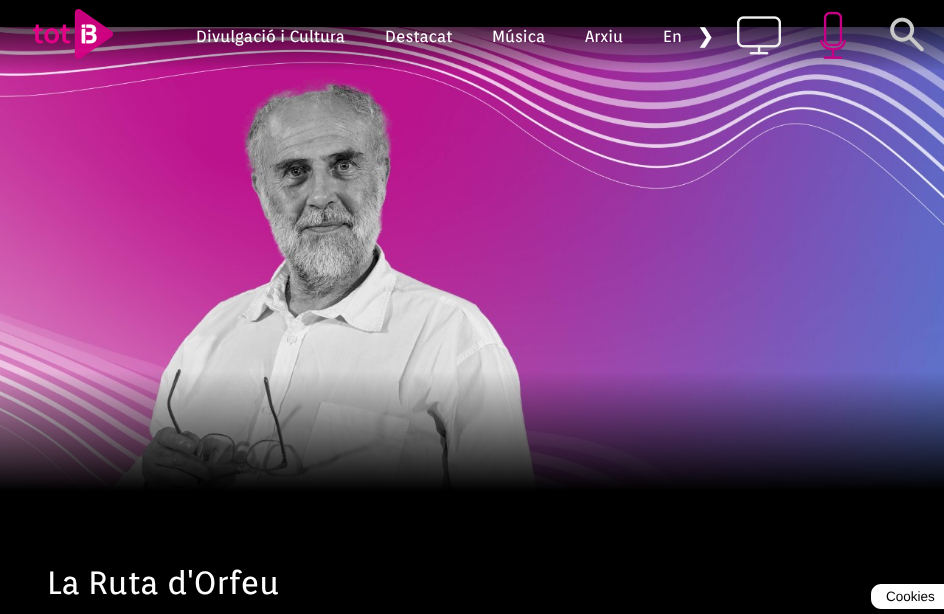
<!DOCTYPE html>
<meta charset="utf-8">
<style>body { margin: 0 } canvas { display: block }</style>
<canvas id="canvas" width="944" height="614"></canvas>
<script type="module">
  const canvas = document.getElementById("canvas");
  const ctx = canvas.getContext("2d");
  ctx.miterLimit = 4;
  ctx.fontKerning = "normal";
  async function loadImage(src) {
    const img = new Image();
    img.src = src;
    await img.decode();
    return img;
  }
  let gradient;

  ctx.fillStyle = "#000000";
  ctx.fillRect(0, 0, 944, 614);
  ctx.drawImage(await loadImage("img5.png"), 0, 27, 944, 464);
  gradient = ctx.createLinearGradient(472, 0, 472, 72);
  gradient.addColorStop(0, "#000000");
  gradient.addColorStop(1, "rgba(0, 0, 0, 0)");
  ctx.fillStyle = gradient;
  ctx.fillRect(0, 27, 944, 43);
  ctx.drawImage(await loadImage("img1.png"), 33, 9, 80, 50);
  ctx.font = "16px Orienta";
  ctx.fillStyle = "#ffffff";
  ctx.fillText("Divulgació i Cultura", 196, 42);
  ctx.fillText("Destacat", 385, 42);
  ctx.fillText("Música", 492, 42);
  ctx.fillText("Arxiu", 585, 42);
  ctx.fillText("En", 663, 42);
  ctx.font = "bold 20px DejaVu Sans";
  ctx.fillText("❯", 697, 43);
  ctx.drawImage(await loadImage("img2.png"), 737, 16, 44, 39);
  ctx.drawImage(await loadImage("img3.png"), 820, 11, 26, 48);
  ctx.drawImage(await loadImage("img4.png"), 890, 17, 34, 35);
  ctx.font = "32px Orienta";
  ctx.fillText("La Ruta d'Orfeu", 47, 594);
  ctx.beginPath();
  ctx.moveTo(881, 584);
  ctx.lineTo(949, 584);
  ctx.lineTo(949, 609);
  ctx.lineTo(881, 609);
  ctx.bezierCurveTo(875.5, 609, 871, 604.5, 871, 599);
  ctx.lineTo(871, 594);
  ctx.bezierCurveTo(871, 588.5, 875.5, 584, 881, 584);
  ctx.closePath();
  ctx.fill();
  ctx.font = "13.5px Liberation Sans";
  ctx.fillStyle = "#000000";
  ctx.fillText("Cookies", 886, 601);
</script>
